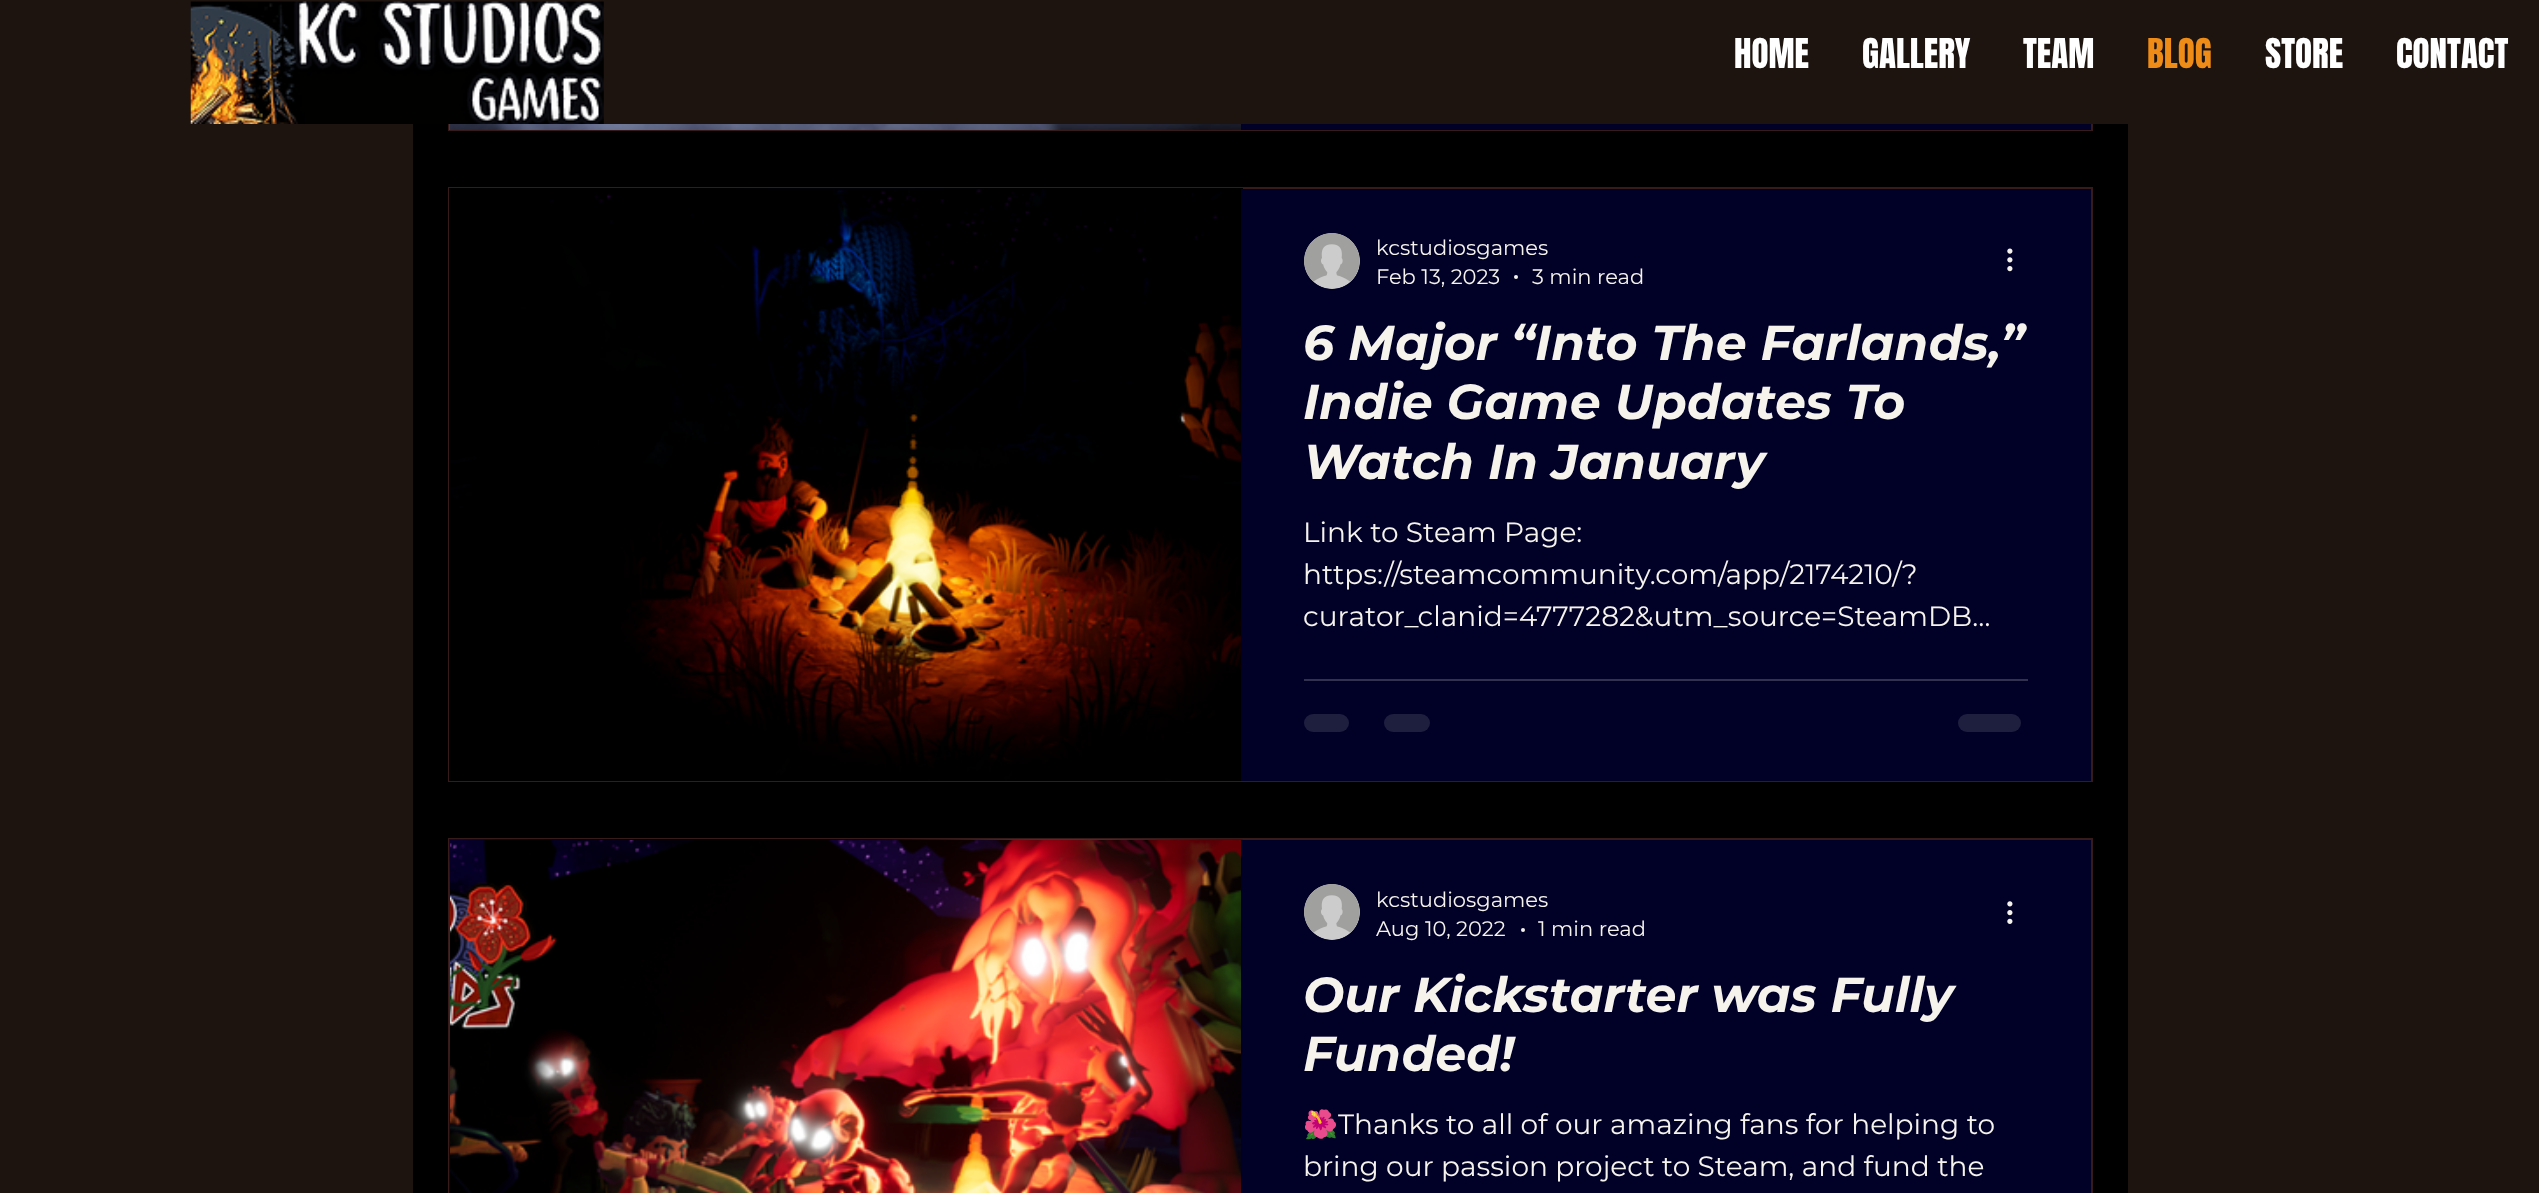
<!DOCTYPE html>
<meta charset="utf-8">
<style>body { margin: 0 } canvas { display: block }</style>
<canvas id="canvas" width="2539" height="1193"></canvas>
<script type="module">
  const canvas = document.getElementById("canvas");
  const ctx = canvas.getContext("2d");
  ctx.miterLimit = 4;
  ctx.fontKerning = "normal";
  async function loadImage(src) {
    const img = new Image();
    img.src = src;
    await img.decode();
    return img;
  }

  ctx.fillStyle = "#1d1410";
  ctx.fillRect(0, 0, 2539, 1193);
  ctx.fillStyle = "#000000";
  ctx.fillRect(413, 124, 1715, 1069);
  ctx.strokeStyle = "#371b1b";
  ctx.lineWidth = 2;
  ctx.strokeRect(449, -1, 1643, 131);
  ctx.fillStyle = "#1d1410";
  ctx.fillRect(448, 0, 1645, 124);
  ctx.drawImage(await loadImage("img1.png"), 190, 1, 414, 123);
  ctx.font = "35px Anton";
  ctx.fillStyle = "#ffffff";
  ctx.fillText("HOME", 1734, 68);
  ctx.fillText("GALLERY", 1862, 68);
  ctx.fillText("TEAM", 2023, 68);
  ctx.fillStyle = "#ef8b17";
  ctx.fillText("BLOG", 2147, 68);
  ctx.fillStyle = "#ffffff";
  ctx.fillText("STORE", 2265, 68);
  ctx.fillText("CONTACT", 2396, 68);
  ctx.drawImage(await loadImage("img2.png"), 449, 124, 1, 6);
  ctx.drawImage(await loadImage("img3.png"), 450, 124, 791, 6);
  ctx.fillStyle = "#010127";
  ctx.fillRect(1241, 124, 850, 6);
  ctx.strokeRect(449, 188, 1643, 593);
  ctx.drawImage(await loadImage("img4.png"), 449, 188, 794, 593);
  ctx.drawImage(await loadImage("img5.png"), 450, 189, 791, 592);
  ctx.fillRect(1241, 189, 850, 592);
  ctx.drawImage(await loadImage("img6.png"), 1304, 233, 56, 56);
  ctx.font = "21px Montserrat";
  ctx.fillStyle = "#f6f3ed";
  ctx.fillText("kcstudiosgames", 1376, 255);
  ctx.fillText("Feb 13, 2023", 1376, 284);
  ctx.beginPath();
  ctx.arc(1516, 277, 2, 0, Math.PI * 2);
  ctx.fill();
  ctx.fillText("3 min read", 1532, 284);
  ctx.drawImage(await loadImage("img7.png"), 2007, 248, 6, 24);
  ctx.font = "italic bold 49px Montserrat";
  ctx.fillText("6 Major “Into The Farlands,”", 1303, 360);
  ctx.fillText("Indie Game Updates To", 1303, 419);
  ctx.fillText("Watch In January", 1303, 479);
  ctx.font = "28px Montserrat";
  ctx.fillText("Link to Steam Page:", 1303, 542);
  ctx.fillText("https://steamcommunity.com/app/2174210/?", 1303, 584);
  ctx.fillText("curator_clanid=4777282&utm_source=SteamDB…", 1303, 626);
  ctx.fillStyle = "#32314f";
  ctx.fillRect(1304, 679, 724, 2);
  ctx.fillStyle = "#1e1e3f";
  ctx.beginPath();
  ctx.roundRect(1304, 714, 45, 18, 9);
  ctx.fill();
  ctx.beginPath();
  ctx.roundRect(1384, 714, 46, 18, 9);
  ctx.fill();
  ctx.beginPath();
  ctx.roundRect(1958, 714, 63, 18, 9);
  ctx.fill();
  ctx.strokeRect(449, 839, 1643, 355);
  ctx.drawImage(await loadImage("img8.png"), 449, 839, 794, 354);
  ctx.drawImage(await loadImage("img9.png"), 450, 840, 791, 353);
  ctx.fillStyle = "#010127";
  ctx.fillRect(1241, 840, 850, 353);
  ctx.drawImage(await loadImage("img6.png"), 1304, 884, 56, 56);
  ctx.font = "21px Montserrat";
  ctx.fillStyle = "#f6f3ed";
  ctx.fillText("kcstudiosgames", 1376, 907);
  ctx.fillText("Aug 10, 2022", 1376, 936);
  ctx.beginPath();
  ctx.arc(1523, 930, 2, 0, Math.PI * 2);
  ctx.fill();
  ctx.fillText("1 min read", 1538, 936);
  ctx.drawImage(await loadImage("img10.png"), 2007, 901, 6, 23);
  ctx.font = "italic bold 49px Montserrat";
  ctx.fillText("Our Kickstarter was Fully", 1303, 1012);
  ctx.fillText("Funded!", 1303, 1071);
  ctx.save();
  ctx.beginPath();
  ctx.rect(1304, 1104, 724, 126);
  ctx.clip();
  ctx.font = "28px Noto Color Emoji";
  ctx.fillText("🌺", 1303, 1134);
  ctx.restore();
  ctx.font = "28px Montserrat";
  ctx.fillText("Thanks to all of our amazing fans for helping to", 1338, 1134);
  ctx.fillText("bring our passion project to Steam, and fund the", 1303, 1176);
</script>
